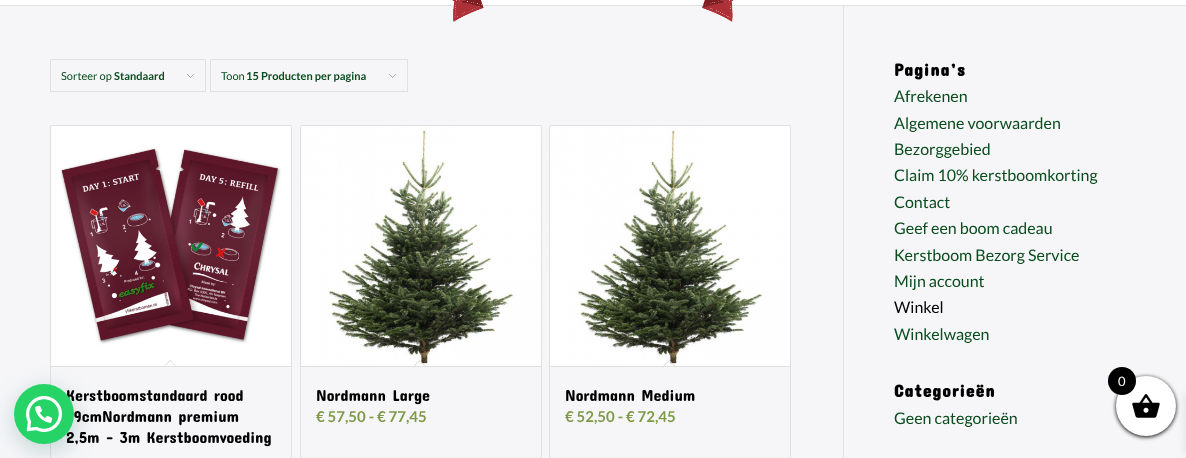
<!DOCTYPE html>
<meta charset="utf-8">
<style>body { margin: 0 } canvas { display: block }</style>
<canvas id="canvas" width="1186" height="458"></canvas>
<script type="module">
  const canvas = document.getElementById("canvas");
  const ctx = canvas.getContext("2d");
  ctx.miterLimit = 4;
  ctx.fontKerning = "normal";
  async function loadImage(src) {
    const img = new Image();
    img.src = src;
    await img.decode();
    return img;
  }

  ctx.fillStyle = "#ffffff";
  ctx.fillRect(0, 0, 1186, 458);
  ctx.fillStyle = "#f6f6f8";
  ctx.fillRect(0, 6, 1186, 452);
  ctx.beginPath();
  ctx.roundRect(50.5, 125.5, 241, 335, 1.5);
  ctx.strokeStyle = "#e0e0e0";
  ctx.stroke();
  ctx.drawImage(await loadImage("img4.png"), 51, 126, 240, 240);
  ctx.fillStyle = "#e0e0e0";
  ctx.fillRect(51, 366, 240, 1);
  ctx.fillStyle = "rgba(7, 94, 84, 0.24)";
  ctx.filter = "blur(12px)";
  ctx.beginPath();
  ctx.roundRect(15, 390, 60, 60, 30);
  ctx.fill();
  ctx.filter = "none";
  ctx.font = "16px Concert One";
  ctx.fillStyle = "#000000";
  ctx.fillText("Kerstboomstandaard rood", 66, 401);
  ctx.fillText("2,5m – 3m Kerstboomvoeding", 66, 443);
  ctx.fillStyle = "#25d366";
  ctx.beginPath();
  ctx.arc(44, 414, 30, 0, Math.PI * 2);
  ctx.fill();
  ctx.drawImage(await loadImage("img1.png"), 26, 396, 36, 36);
  ctx.fillStyle = "#e0e0e0";
  ctx.fillRect(0, 5, 1186, 1);
  ctx.drawImage(await loadImage("img2.png"), 452, 0, 282, 22);
  ctx.fillRect(843, 6, 1, 452);
  ctx.drawImage(await loadImage("img3.png"), 187, 74, 7, 4);
  ctx.strokeRect(50.5, 59.5, 155, 32);
  ctx.font = "11px Lato";
  ctx.fillStyle = "#0a4c1e";
  ctx.fillText("Sorteer op", 61, 80);
  ctx.font = "bold 11px Lato";
  ctx.fillText("Standaard", 114, 80);
  ctx.drawImage(await loadImage("img3.png"), 389, 74, 7, 4);
  ctx.strokeRect(210.5, 59.5, 197, 32);
  ctx.font = "11px Lato";
  ctx.fillText("Toon", 221, 80);
  ctx.font = "bold 11px Lato";
  ctx.fillText("15 Producten per pagina", 246, 80);
  ctx.fillStyle = "#e0e0e0";
  ctx.beginPath();
  ctx.moveTo(170, 360);
  ctx.lineTo(177, 367);
  ctx.lineTo(176.5, 367.5);
  ctx.lineTo(169.5, 360.5);
  ctx.closePath();
  ctx.fill();
  ctx.beginPath();
  ctx.moveTo(170, 360);
  ctx.lineTo(171, 360.5);
  ctx.lineTo(163.5, 367.5);
  ctx.lineTo(163, 367);
  ctx.closePath();
  ctx.fill();
  ctx.font = "16px Concert One";
  ctx.fillStyle = "#000000";
  ctx.fillText("9cmNordmann premium", 74, 422);
  ctx.beginPath();
  ctx.roundRect(300.5, 125.5, 241, 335, 1.5);
  ctx.stroke();
  ctx.drawImage(await loadImage("img5.png"), 301, 126, 240, 240);
  ctx.fillStyle = "#e0e0e0";
  ctx.fillRect(301, 366, 240, 1);
  ctx.beginPath();
  ctx.moveTo(419.5, 360);
  ctx.lineTo(426.5, 367);
  ctx.lineTo(426, 367.5);
  ctx.lineTo(419, 360.5);
  ctx.closePath();
  ctx.fill();
  ctx.beginPath();
  ctx.moveTo(419.5, 360);
  ctx.lineTo(420.5, 360.5);
  ctx.lineTo(413.5, 367.5);
  ctx.lineTo(412.5, 367);
  ctx.closePath();
  ctx.fill();
  ctx.fillStyle = "#000000";
  ctx.fillText("Nordmann Large", 316, 401);
  ctx.font = "bold 15px Lato";
  ctx.fillStyle = "#7e9a47";
  ctx.fillText("€ 57,50 - € 77,45", 316, 422);
  ctx.fillStyle = "#f2f2f3";
  ctx.fillRect(301, 457, 240, 1);
  ctx.beginPath();
  ctx.roundRect(549.5, 125.5, 241, 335, 1.5);
  ctx.stroke();
  ctx.drawImage(await loadImage("img5.png"), 550, 126, 240, 240);
  ctx.fillStyle = "#e0e0e0";
  ctx.fillRect(550, 366, 240, 1);
  ctx.beginPath();
  ctx.moveTo(669, 360);
  ctx.lineTo(676.5, 367);
  ctx.lineTo(675.5, 367.5);
  ctx.lineTo(668.5, 360.5);
  ctx.closePath();
  ctx.fill();
  ctx.beginPath();
  ctx.moveTo(669, 360);
  ctx.lineTo(670, 360.5);
  ctx.lineTo(663, 367.5);
  ctx.lineTo(662, 367);
  ctx.closePath();
  ctx.fill();
  ctx.font = "16px Concert One";
  ctx.fillStyle = "#000000";
  ctx.fillText("Nordmann Medium", 565, 401);
  ctx.font = "bold 15px Lato";
  ctx.fillStyle = "#7e9a47";
  ctx.fillText("€ 52,50 - € 72,45", 565, 422);
  ctx.fillStyle = "#f2f2f3";
  ctx.fillRect(550, 457, 240, 1);
  ctx.letterSpacing = "1px";
  ctx.font = "bold 17.5px Concert One";
  ctx.fillStyle = "#000000";
  ctx.fillText("Pagina’s", 894, 76);
  ctx.letterSpacing = "0px";
  ctx.font = "16px Lato";
  ctx.fillStyle = "#0a4c1e";
  ctx.fillText("Afrekenen", 894, 102);
  ctx.fillText("Algemene voorwaarden", 894, 129);
  ctx.fillText("Bezorggebied", 894, 155);
  ctx.fillText("Claim 10% kerstboomkorting", 894, 181);
  ctx.fillText("Contact", 894, 208);
  ctx.fillText("Geef een boom cadeau", 894, 234);
  ctx.fillText("Kerstboom Bezorg Service", 894, 261);
  ctx.fillText("Mijn account", 894, 287);
  ctx.fillStyle = "#000000";
  ctx.fillText("Winkel", 894, 313);
  ctx.fillStyle = "#0a4c1e";
  ctx.fillText("Winkelwagen", 894, 340);
  ctx.letterSpacing = "1px";
  ctx.font = "bold 17.5px Concert One";
  ctx.fillStyle = "#000000";
  ctx.fillText("Categorieën", 894, 397);
  ctx.letterSpacing = "0px";
  ctx.font = "16px Lato";
  ctx.fillStyle = "#0a4c1e";
  ctx.fillText("Geen categorieën", 894, 424);
  ctx.fillStyle = "#000000";
  ctx.filter = "blur(2px)";
  ctx.beginPath();
  ctx.roundRect(1116, 377, 60, 60, 30);
  ctx.fill();
  ctx.filter = "none";
  ctx.fillStyle = "rgba(0, 0, 0, 0.1)";
  ctx.filter = "blur(5px)";
  ctx.beginPath();
  ctx.rect(1186, 393, 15, 60);
  ctx.fill();
  ctx.filter = "none";
  ctx.fillStyle = "#ffffff";
  ctx.beginPath();
  ctx.arc(1146, 406, 30, 0, Math.PI * 2);
  ctx.fill();
  ctx.drawImage(await loadImage("img6.png"), 1132, 394, 28, 24);
  ctx.fillStyle = "#000000";
  ctx.beginPath();
  ctx.arc(1122, 381, 14, 0, Math.PI * 2);
  ctx.fill();
  ctx.font = "13px Lato";
  ctx.fillStyle = "#ffffff";
  ctx.fillText("0", 1118, 386);
</script>
